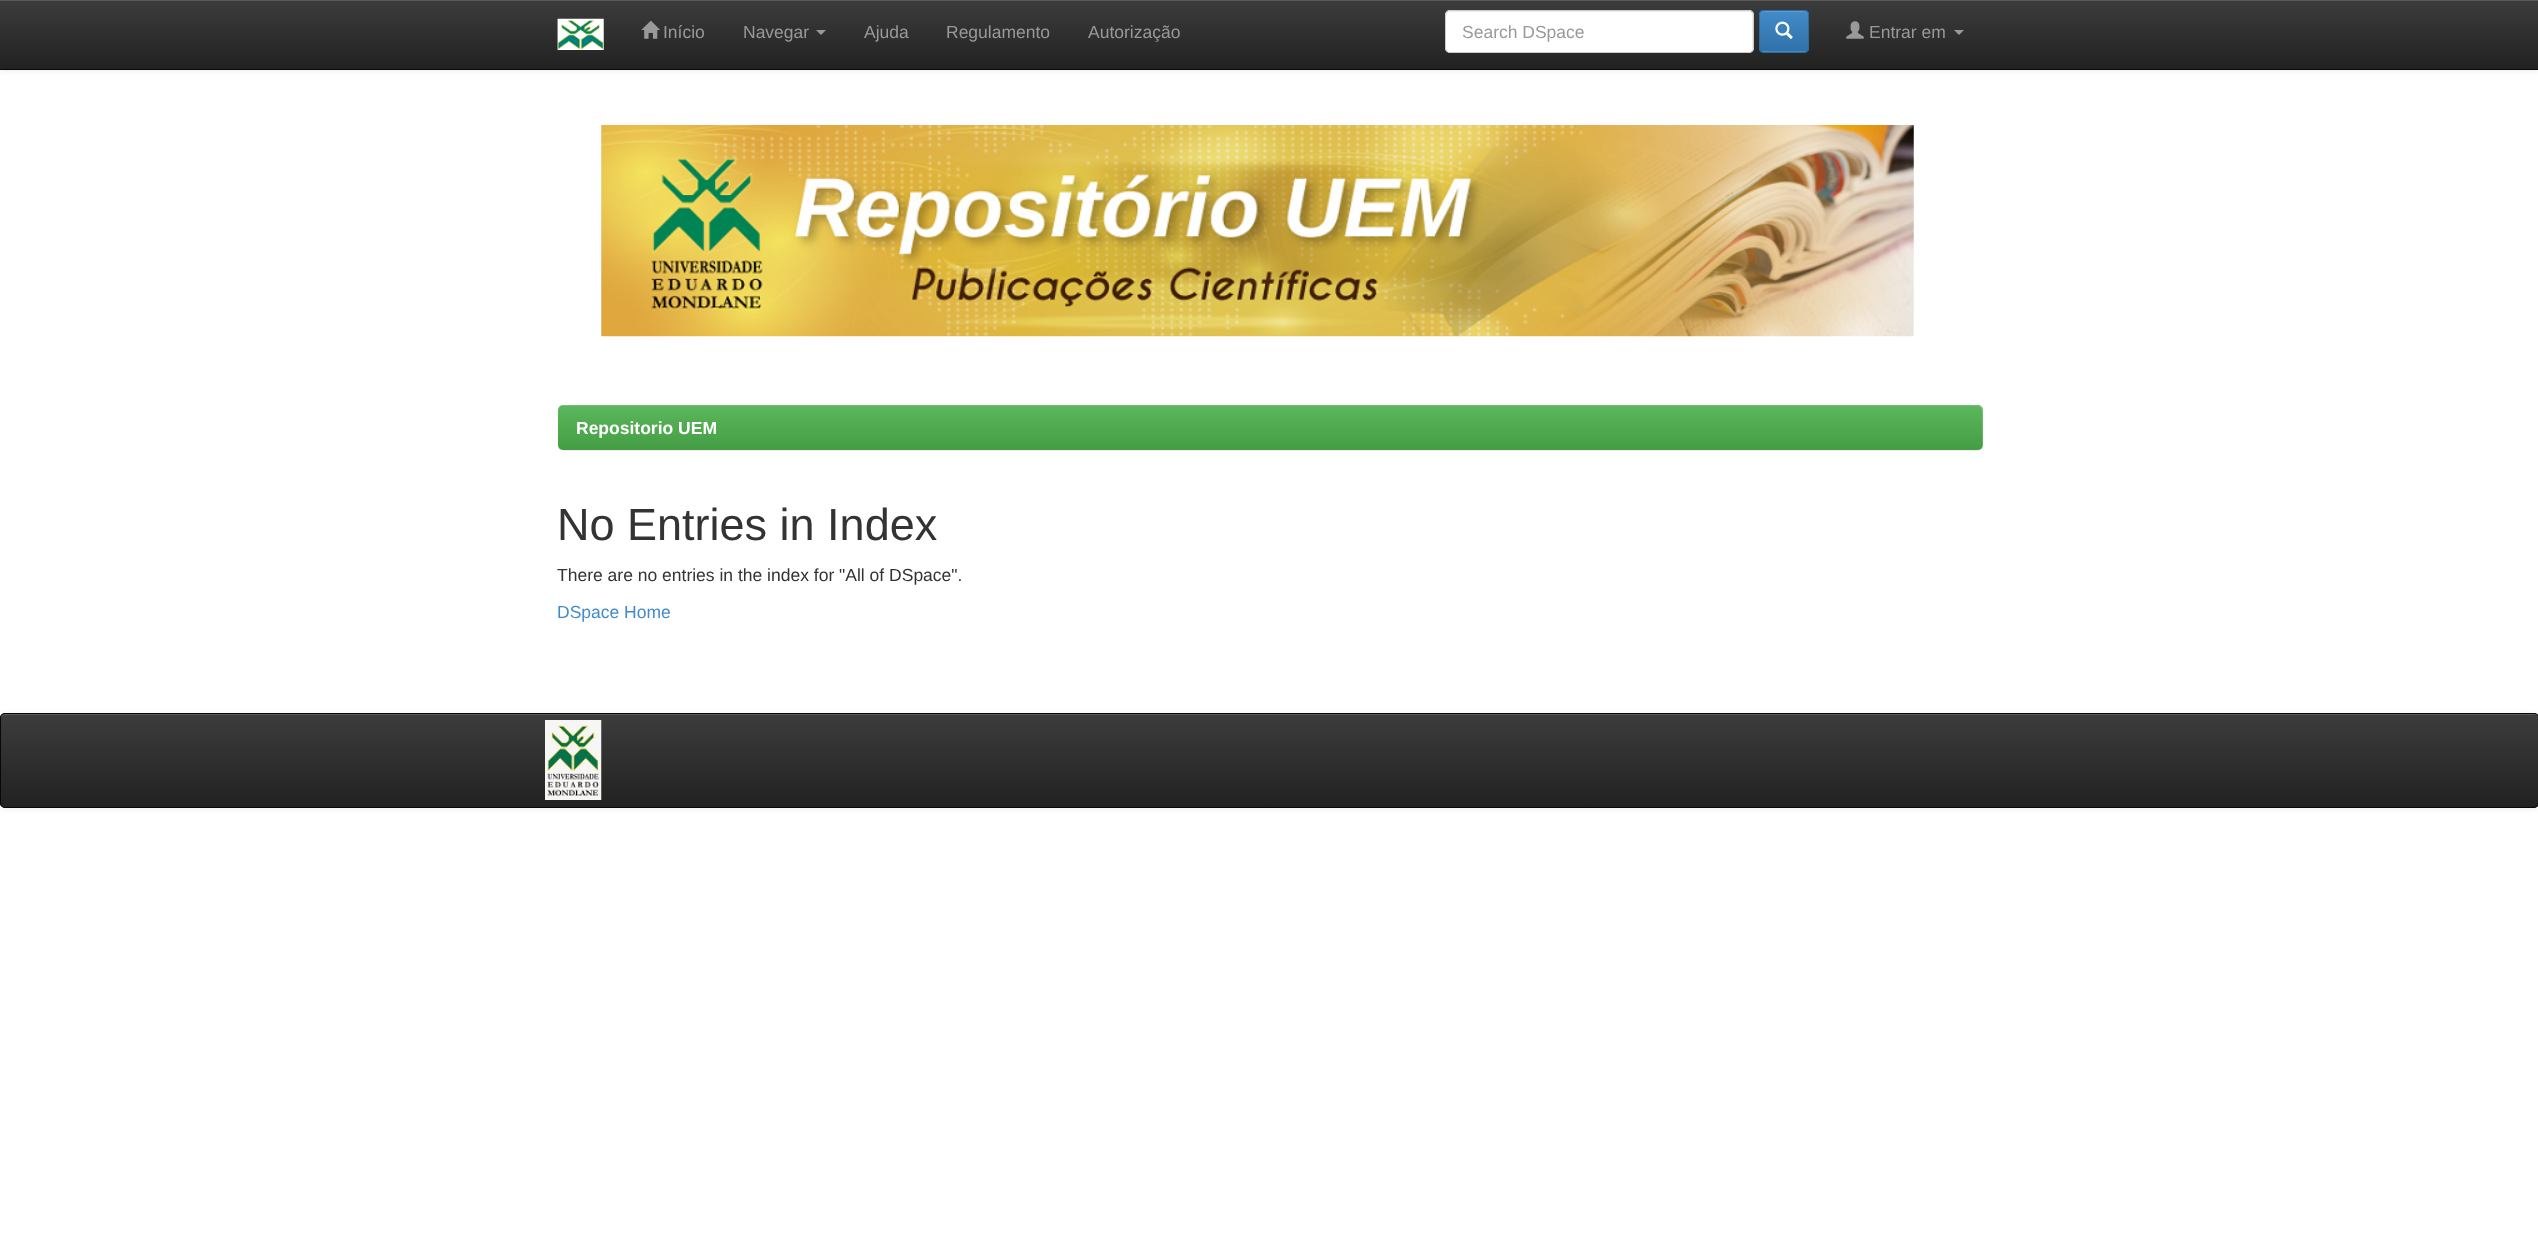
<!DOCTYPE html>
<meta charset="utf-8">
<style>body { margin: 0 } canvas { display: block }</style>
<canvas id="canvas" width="2538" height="1256"></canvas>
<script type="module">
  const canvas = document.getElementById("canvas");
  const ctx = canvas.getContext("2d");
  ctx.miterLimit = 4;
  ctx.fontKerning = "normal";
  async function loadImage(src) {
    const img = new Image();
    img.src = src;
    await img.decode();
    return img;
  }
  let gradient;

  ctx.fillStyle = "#ffffff";
  ctx.fillRect(0, 0, 2538, 1256);
  ctx.fillStyle = "rgba(0, 0, 0, 0.07)";
  ctx.filter = "blur(3px)";
  ctx.beginPath();
  ctx.rect(0, 1, 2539, 70);
  ctx.fill();
  ctx.filter = "none";
  gradient = ctx.createLinearGradient(1269, 0, 1269, 69);
  gradient.addColorStop(0, "#3c3c3c");
  gradient.addColorStop(1, "#222222");
  ctx.fillStyle = gradient;
  ctx.fillRect(0, 1, 2538, 68);
  ctx.fillStyle = "#595959";
  ctx.fillRect(0, 0, 2538, 1);
  ctx.fillStyle = "#080808";
  ctx.fillRect(0, 69, 2538, 1);
  ctx.drawImage(await loadImage("img1.png"), 557, 18, 47, 32);
  ctx.drawImage(await loadImage("img2.png"), 641, 20, 19, 19);
  ctx.font = "17.5px Liberation Sans";
  ctx.fillStyle = "#999999";
  ctx.fillText("Início", 663, 38);
  ctx.fillText("Navegar", 743, 38);
  ctx.beginPath();
  ctx.moveTo(816, 30);
  ctx.lineTo(826, 30);
  ctx.lineTo(821, 35);
  ctx.closePath();
  ctx.fill();
  ctx.fillText("Ajuda", 864, 38);
  ctx.fillText("Regulamento", 946, 38);
  ctx.fillText("Autorização", 1088, 38);
  ctx.fillStyle = "#ffffff";
  ctx.beginPath();
  ctx.roundRect(1445, 10, 309, 43, 5);
  ctx.fill();
  ctx.fillStyle = "#ececec";
  ctx.beginPath();
  ctx.moveTo(1450, 12);
  ctx.lineTo(1749, 12);
  ctx.bezierCurveTo(1751, 12, 1752, 14, 1752, 16);
  ctx.lineTo(1752, 50);
  ctx.bezierCurveTo(1753, 49, 1753, 48, 1753, 47);
  ctx.lineTo(1753, 15);
  ctx.bezierCurveTo(1753, 13, 1751, 11, 1749, 11);
  ctx.lineTo(1450, 11);
  ctx.bezierCurveTo(1448, 11, 1446, 13, 1446, 15);
  ctx.lineTo(1446, 16);
  ctx.bezierCurveTo(1446, 14, 1448, 12, 1450, 12);
  ctx.closePath();
  ctx.fill();
  ctx.beginPath();
  ctx.roundRect(1445.5, 10.5, 308, 42, 4.5);
  ctx.strokeStyle = "#cccccc";
  ctx.stroke();
  ctx.fillStyle = "#999999";
  ctx.fillText("Search DSpace", 1462, 38);
  ctx.fillStyle = "#428bca";
  ctx.beginPath();
  ctx.roundRect(1759, 10, 50, 43, 5);
  ctx.fill();
  ctx.save();
  ctx.beginPath();
  ctx.roundRect(1759, 10, 50, 43, 5);
  ctx.clip();
  gradient = ctx.createLinearGradient(1784, 11, 1784, 51);
  gradient.addColorStop(0, "#428bca");
  gradient.addColorStop(1, "#3071a9");
  ctx.fillStyle = gradient;
  ctx.fillRect(1759, 11, 50, 40);
  ctx.restore();
  ctx.fillStyle = "#5e9cd2";
  ctx.beginPath();
  ctx.moveTo(1764, 12);
  ctx.lineTo(1804, 12);
  ctx.bezierCurveTo(1806, 12, 1808, 14, 1808, 16);
  ctx.bezierCurveTo(1808, 10, 1802, 11, 1797, 11);
  ctx.lineTo(1771, 11);
  ctx.bezierCurveTo(1766, 11, 1760, 10, 1760, 16);
  ctx.bezierCurveTo(1760, 14, 1762, 12, 1764, 12);
  ctx.closePath();
  ctx.fill();
  ctx.beginPath();
  ctx.roundRect(1759.5, 10.5, 49, 42, 4.5);
  ctx.strokeStyle = "#2d6ca2";
  ctx.stroke();
  ctx.drawImage(await loadImage("img3.png"), 1775, 21, 18, 18);
  ctx.drawImage(await loadImage("img4.png"), 1846, 21, 18, 18);
  ctx.fillStyle = "#999999";
  ctx.fillText("Entrar em", 1869, 38);
  ctx.beginPath();
  ctx.moveTo(1954, 30);
  ctx.lineTo(1964, 30);
  ctx.lineTo(1959, 35);
  ctx.closePath();
  ctx.fill();
  ctx.drawImage(await loadImage("img5.png"), 601, 125, 1313, 212);
  ctx.fillStyle = "rgba(0, 0, 0, 0.07)";
  ctx.filter = "blur(0.5px)";
  ctx.beginPath();
  ctx.roundRect(558, 406, 1425, 45, 5);
  ctx.fill();
  ctx.filter = "none";
  gradient = ctx.createLinearGradient(1270, 405, 1270, 450);
  gradient.addColorStop(0, "#5cb85c");
  gradient.addColorStop(1, "#449d44");
  ctx.fillStyle = gradient;
  ctx.beginPath();
  ctx.roundRect(558, 405, 1425, 45, 5);
  ctx.fill();
  ctx.fillStyle = "rgba(255, 255, 255, 0.15)";
  ctx.beginPath();
  ctx.moveTo(562, 406);
  ctx.lineTo(1978, 406);
  ctx.bezierCurveTo(1980, 406, 1982, 408, 1982, 411);
  ctx.lineTo(1982, 446);
  ctx.lineTo(1981, 449);
  ctx.bezierCurveTo(1982, 448, 1983, 446, 1983, 445);
  ctx.lineTo(1983, 410);
  ctx.bezierCurveTo(1983, 407, 1981, 405, 1978, 405);
  ctx.lineTo(563, 405);
  ctx.bezierCurveTo(560, 405, 558, 407, 558, 410);
  ctx.lineTo(558, 411);
  ctx.bezierCurveTo(558, 408, 560, 406, 562, 406);
  ctx.closePath();
  ctx.fill();
  ctx.font = "bold 17.5px Liberation Sans";
  ctx.fillStyle = "#ffffff";
  ctx.fillText("Repositorio UEM", 576, 434);
  ctx.font = "45px Liberation Sans";
  ctx.fillStyle = "#333333";
  ctx.fillText("No Entries in Index", 557, 540);
  ctx.font = "17.5px Liberation Sans";
  ctx.fillText("There are no entries in the index for \"All of DSpace\".", 557, 581);
  ctx.fillStyle = "#428bca";
  ctx.fillText("DSpace Home", 557, 618);
  ctx.fillStyle = "rgba(0, 0, 0, 0.07)";
  ctx.filter = "blur(3px)";
  ctx.beginPath();
  ctx.roundRect(0, 714, 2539, 95, 5);
  ctx.fill();
  ctx.filter = "none";
  ctx.fillStyle = "#222222";
  ctx.beginPath();
  ctx.roundRect(0, 713, 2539, 95, 5);
  ctx.fill();
  ctx.save();
  ctx.beginPath();
  ctx.roundRect(0, 713, 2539, 95, 5);
  ctx.clip();
  gradient = ctx.createLinearGradient(1269, 714, 1269, 806);
  gradient.addColorStop(0, "#3c3c3c");
  gradient.addColorStop(1, "#222222");
  ctx.fillStyle = gradient;
  ctx.fillRect(0, 714, 2538, 92);
  ctx.restore();
  ctx.fillStyle = "#595959";
  ctx.beginPath();
  ctx.moveTo(5, 715);
  ctx.lineTo(2534, 715);
  ctx.bezierCurveTo(2536, 715, 2538, 717, 2538, 719);
  ctx.bezierCurveTo(2538, 716, 2537, 714, 2534, 714);
  ctx.lineTo(5, 714);
  ctx.bezierCurveTo(2, 714, 1, 716, 1, 719);
  ctx.bezierCurveTo(1, 717, 3, 715, 5, 715);
  ctx.closePath();
  ctx.fill();
  ctx.beginPath();
  ctx.roundRect(0.5, 713.5, 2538, 94, 4.5);
  ctx.strokeStyle = "#080808";
  ctx.stroke();
  ctx.drawImage(await loadImage("img6.png"), 545, 720, 57, 80);
</script>
